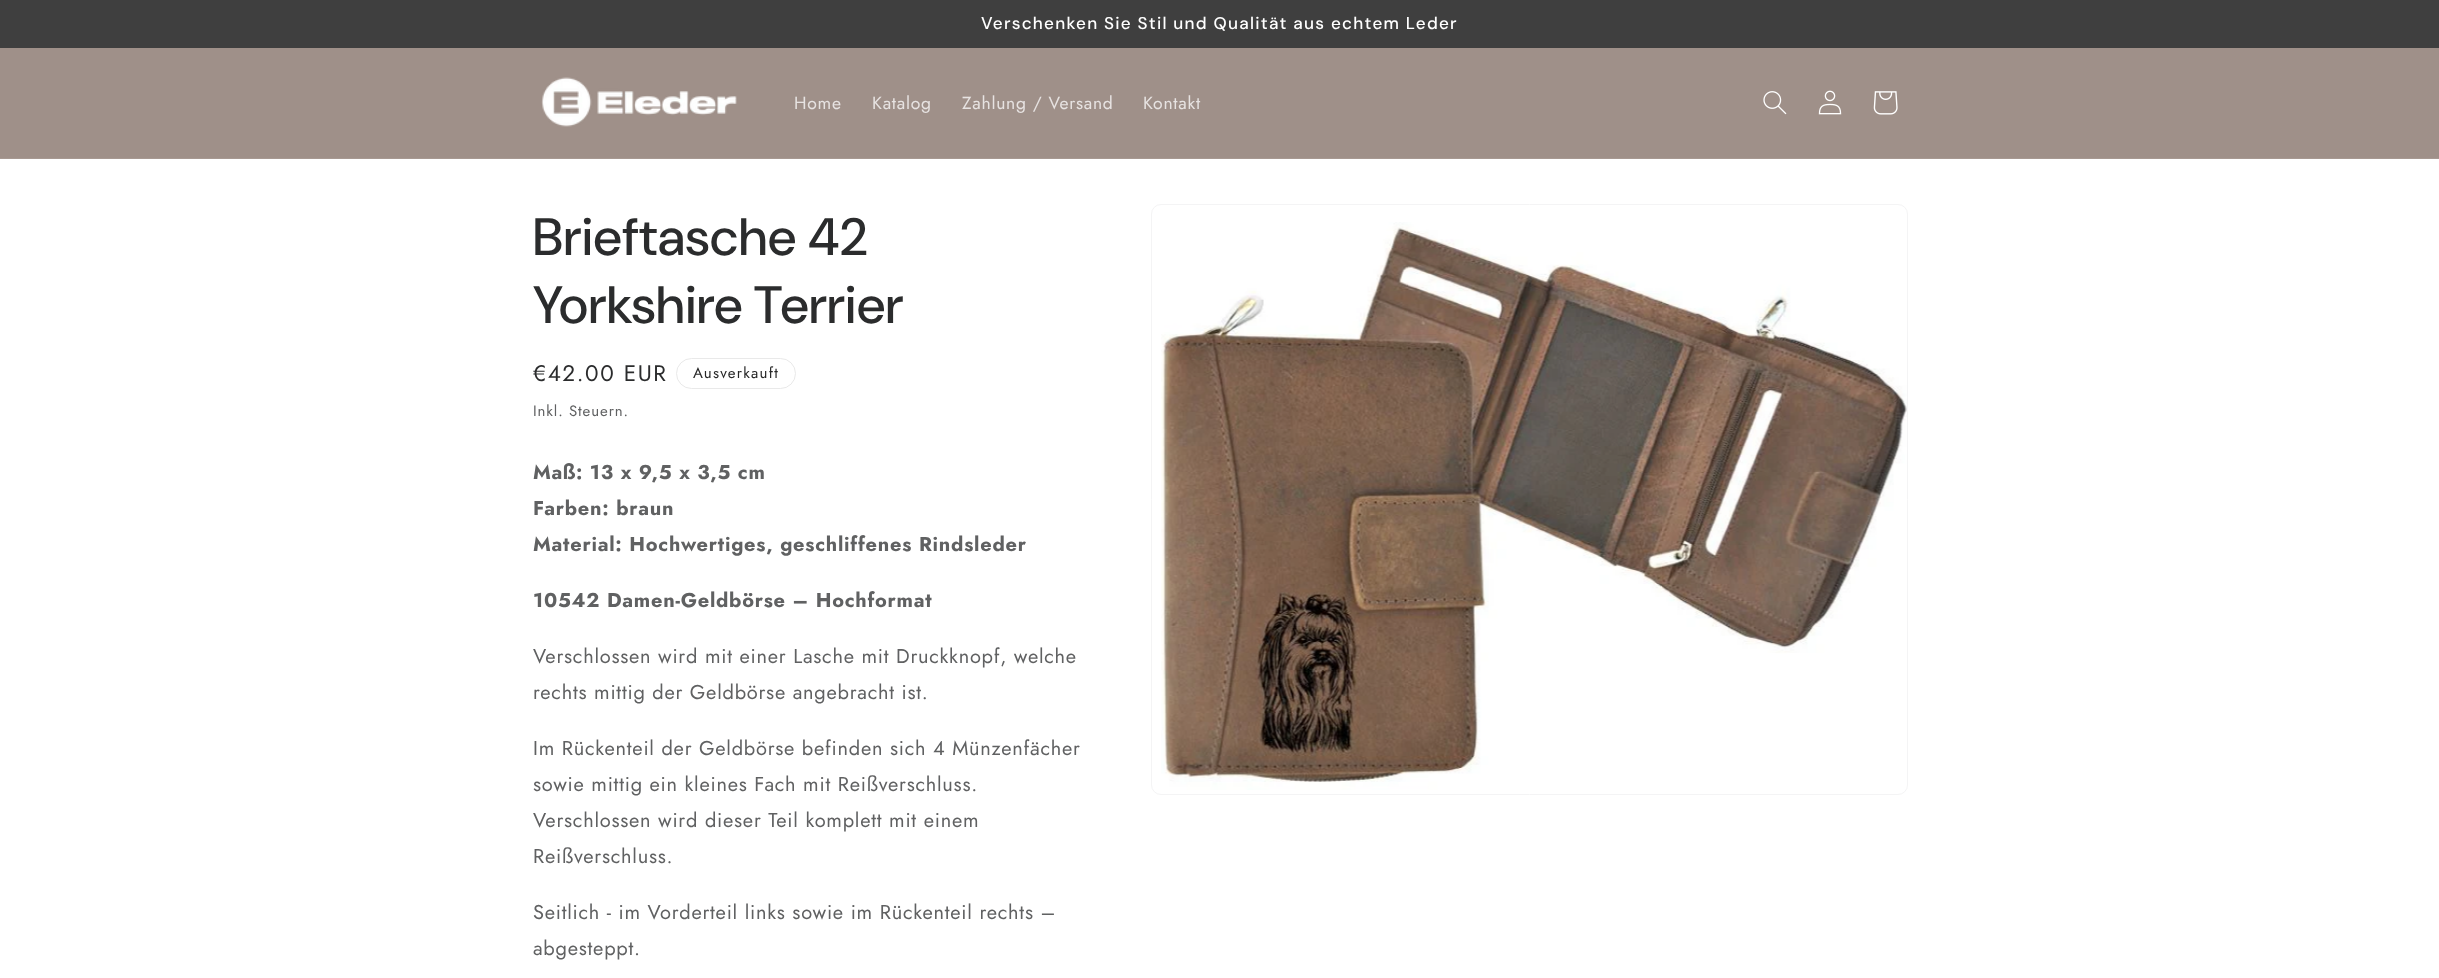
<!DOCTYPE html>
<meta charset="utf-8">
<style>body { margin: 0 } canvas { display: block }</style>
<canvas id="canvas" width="2439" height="978"></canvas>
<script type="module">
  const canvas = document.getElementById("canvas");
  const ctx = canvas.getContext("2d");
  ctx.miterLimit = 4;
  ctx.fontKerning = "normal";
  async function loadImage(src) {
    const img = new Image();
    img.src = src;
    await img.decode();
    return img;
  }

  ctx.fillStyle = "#ffffff";
  ctx.fillRect(0, 0, 2439, 978);
  ctx.fillStyle = "#3f3f3f";
  ctx.fillRect(0, 0, 2439, 48);
  ctx.letterSpacing = "1.25px";
  ctx.font = "500 17.05px 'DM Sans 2'";
  ctx.fillStyle = "#ffffff";
  ctx.fillText("Verschenken Sie Stil und Qualität aus echtem Leder", 981, 29);
  ctx.fillStyle = "#9f9089";
  ctx.fillRect(0, 48, 2439, 110);
  ctx.fillStyle = "#a79992";
  ctx.fillRect(0, 158, 2439, 1);
  ctx.drawImage(await loadImage("img1.png"), 541, 77, 196, 50);
  ctx.letterSpacing = "0.75px";
  ctx.font = "17.5px Jost";
  ctx.fillStyle = "#e7e3e2";
  ctx.fillText("Home", 794, 109);
  ctx.fillText("Katalog", 872, 109);
  ctx.fillText("Zahlung / Versand", 962, 109);
  ctx.fillText("Kontakt", 1143, 109);
  ctx.drawImage(await loadImage("img2.png"), 1763, 91, 24, 24);
  ctx.drawImage(await loadImage("img3.png"), 1818, 90, 24, 25);
  ctx.drawImage(await loadImage("img4.png"), 1873, 91, 25, 24);
  ctx.font = "500 52.5px DM Sans";
  ctx.fillStyle = "#2b2c2d";
  ctx.fillText("Brieftasche 42", 533, 255);
  ctx.fillText("Yorkshire Terrier", 533, 323);
  ctx.letterSpacing = "1.6px";
  ctx.font = "22.5px Jost";
  ctx.fillText("€42.00 EUR", 533, 381);
  ctx.beginPath();
  ctx.roundRect(676.5, 358.5, 119, 30, 15);
  ctx.strokeStyle = "#e9e9e9";
  ctx.stroke();
  ctx.letterSpacing = "1.25px";
  ctx.font = "15px Jost";
  ctx.fillStyle = "#262626";
  ctx.fillText("Ausverkauft", 693, 378);
  ctx.letterSpacing = "0.9px";
  ctx.fillStyle = "#606162";
  ctx.fillText("Inkl. Steuern.", 533, 416);
  ctx.letterSpacing = "0.75px";
  ctx.font = "bold 20px Jost";
  ctx.fillText("Maß: 13 x 9,5 x 3,5 cm", 533, 479);
  ctx.fillText("Farben: braun", 533, 515);
  ctx.fillText("Material: Hochwertiges, geschliffenes Rindsleder", 533, 551);
  ctx.fillText("10542 Damen-Geldbörse – Hochformat", 533, 607);
  ctx.font = "20px Jost";
  ctx.fillText("Verschlossen wird mit einer Lasche mit Druckknopf, welche", 533, 663);
  ctx.fillText("rechts mittig der Geldbörse angebracht ist.", 533, 699);
  ctx.fillText("Im Rückenteil der Geldbörse befinden sich 4 Münzenfächer", 533, 755);
  ctx.fillText("sowie mittig ein kleines Fach mit Reißverschluss.", 533, 791);
  ctx.fillText("Verschlossen wird dieser Teil komplett mit einem", 533, 827);
  ctx.fillText("Reißverschluss.", 533, 863);
  ctx.fillText("Seitlich - im Vorderteil links sowie im Rückenteil rechts –", 533, 919);
  ctx.fillText("abgesteppt.", 533, 955);
  ctx.beginPath();
  ctx.roundRect(1151.5, 204.5, 756, 590, 9.5);
  ctx.strokeStyle = "#f4f4f5";
  ctx.stroke();
  ctx.drawImage(await loadImage("img5.png"), 1161, 222, 746, 568);
</script>
